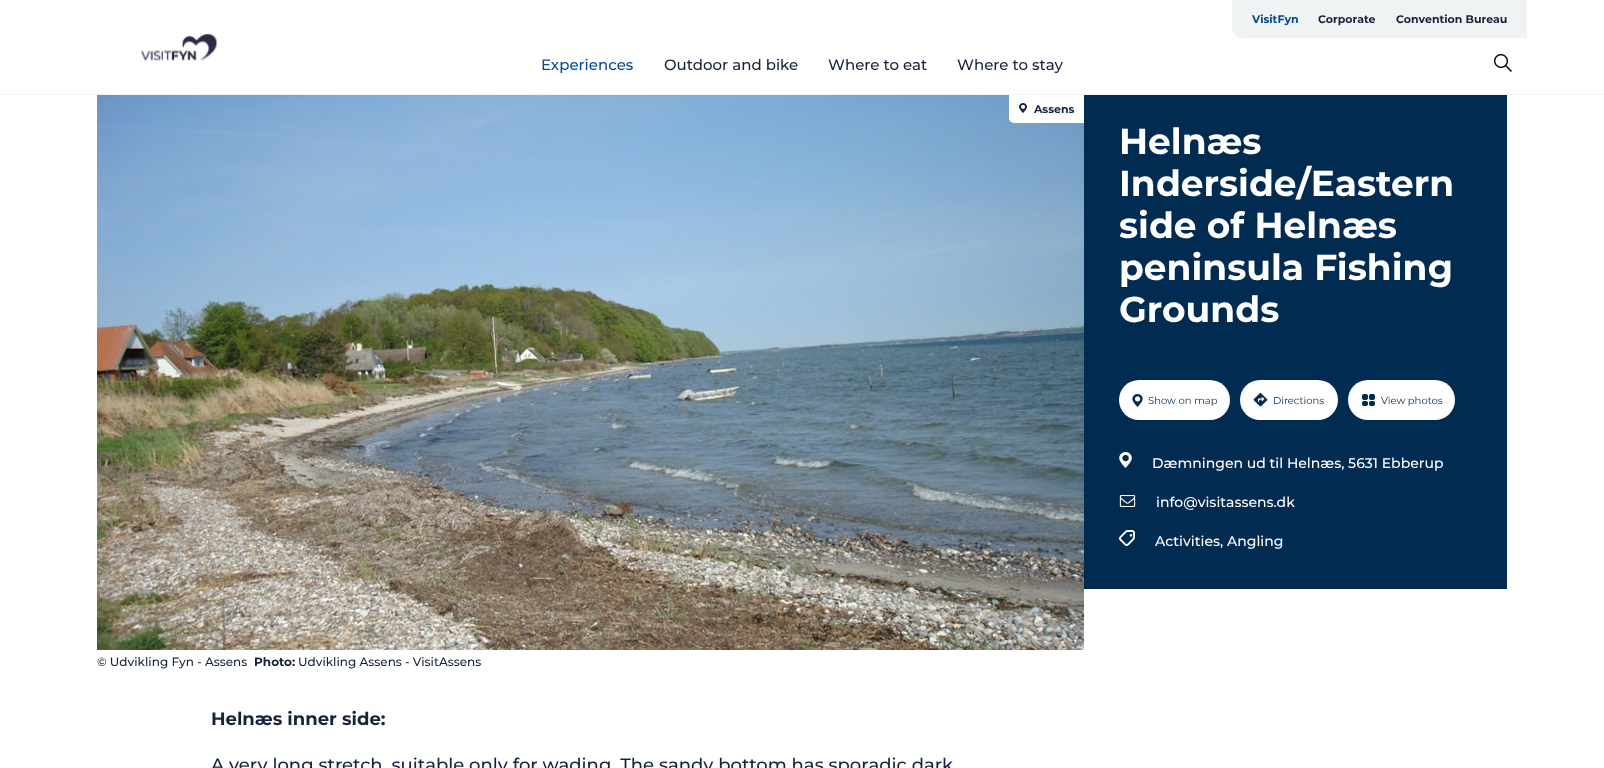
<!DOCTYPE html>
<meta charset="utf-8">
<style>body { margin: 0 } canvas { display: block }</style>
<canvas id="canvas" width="1604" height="768"></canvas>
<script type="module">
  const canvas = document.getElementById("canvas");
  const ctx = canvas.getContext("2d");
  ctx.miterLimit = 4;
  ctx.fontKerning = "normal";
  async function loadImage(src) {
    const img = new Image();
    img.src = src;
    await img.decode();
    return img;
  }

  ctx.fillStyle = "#ffffff";
  ctx.fillRect(0, 0, 1604, 768);
  ctx.fillStyle = "#f0f1f3";
  ctx.fillRect(0, 94, 1604, 1);
  ctx.drawImage(await loadImage("img1.png"), 141, 34, 76, 27);
  ctx.fillStyle = "#eff3f4";
  ctx.beginPath();
  ctx.roundRect(1232, 0, 295, 38, [0, 0, 0, 10]);
  ctx.fill();
  ctx.font = "bold 11px Montserrat";
  ctx.fillStyle = "#004a98";
  ctx.fillText("VisitFyn", 1252, 23);
  ctx.fillStyle = "#16233b";
  ctx.fillText("Corporate", 1318, 23);
  ctx.fillText("Convention Bureau", 1396, 23);
  ctx.font = "500 15px Montserrat";
  ctx.fillStyle = "#004a98";
  ctx.fillText("Experiences", 541, 70);
  ctx.fillStyle = "#16233b";
  ctx.fillText("Outdoor and bike", 664, 70);
  ctx.fillText("Where to eat", 828, 70);
  ctx.fillText("Where to stay", 957, 70);
  ctx.drawImage(await loadImage("img2.png"), 1494, 54, 18, 18);
  ctx.drawImage(await loadImage("img3.png"), 97, 95, 987, 555);
  ctx.fillStyle = "#ffffff";
  ctx.beginPath();
  ctx.roundRect(1009, 95, 75, 28, [0, 0, 0, 5]);
  ctx.fill();
  ctx.drawImage(await loadImage("img4.png"), 1019, 103, 8, 10);
  ctx.font = "bold 11px Montserrat";
  ctx.fillStyle = "#16233b";
  ctx.fillText("Assens", 1034, 113);
  ctx.font = "500 12px Montserrat";
  ctx.fillText("© Udvikling Fyn - Assens", 97, 666);
  ctx.font = "bold 12px Montserrat";
  ctx.fillText("Photo:", 254, 666);
  ctx.font = "500 12px Montserrat";
  ctx.fillText("Udvikling Assens - VisitAssens", 298, 666);
  ctx.fillStyle = "#022b52";
  ctx.fillRect(1084, 95, 423, 494);
  ctx.font = "bold 36px Montserrat";
  ctx.fillStyle = "#ffffff";
  ctx.fillText("Helnæs", 1119, 154);
  ctx.fillText("Inderside/Eastern", 1119, 196);
  ctx.fillText("side of Helnæs", 1119, 238);
  ctx.fillText("peninsula Fishing", 1119, 280);
  ctx.fillText("Grounds", 1119, 322);
  ctx.beginPath();
  ctx.roundRect(1119, 380, 111, 40, 20);
  ctx.fill();
  ctx.drawImage(await loadImage("img5.png"), 1132, 394, 11, 13);
  ctx.font = "10px Montserrat";
  ctx.fillStyle = "#022b52";
  ctx.fillText("Show on map", 1148, 404);
  ctx.fillStyle = "#ffffff";
  ctx.beginPath();
  ctx.roundRect(1240, 380, 98, 40, 20);
  ctx.fill();
  ctx.drawImage(await loadImage("img6.png"), 1253, 393, 15, 14);
  ctx.fillStyle = "#022b52";
  ctx.fillText("Directions", 1273, 404);
  ctx.fillStyle = "#ffffff";
  ctx.beginPath();
  ctx.roundRect(1348, 380, 107, 40, 20);
  ctx.fill();
  ctx.drawImage(await loadImage("img7.png"), 1362, 394, 13, 12);
  ctx.fillStyle = "#022b52";
  ctx.fillText("View photos", 1381, 404);
  ctx.drawImage(await loadImage("img8.png"), 1119, 452, 13, 16);
  ctx.font = "500 14px Montserrat";
  ctx.fillStyle = "#ffffff";
  ctx.fillText("Dæmningen ud til Helnæs, 5631 Ebberup", 1152, 468);
  ctx.drawImage(await loadImage("img9.png"), 1119, 495, 17, 12);
  ctx.fillText("info@visitassens.dk", 1156, 507);
  ctx.drawImage(await loadImage("img10.png"), 1119, 530, 16, 16);
  ctx.fillText("Activities, Angling", 1155, 546);
  ctx.font = "bold 18px Montserrat";
  ctx.fillStyle = "#16233b";
  ctx.fillText("Helnæs inner side:", 211, 725);
  ctx.font = "500 18px Montserrat";
  ctx.fillText("A very long stretch, suitable only for wading. The sandy bottom has sporadic dark", 211, 771);
</script>
